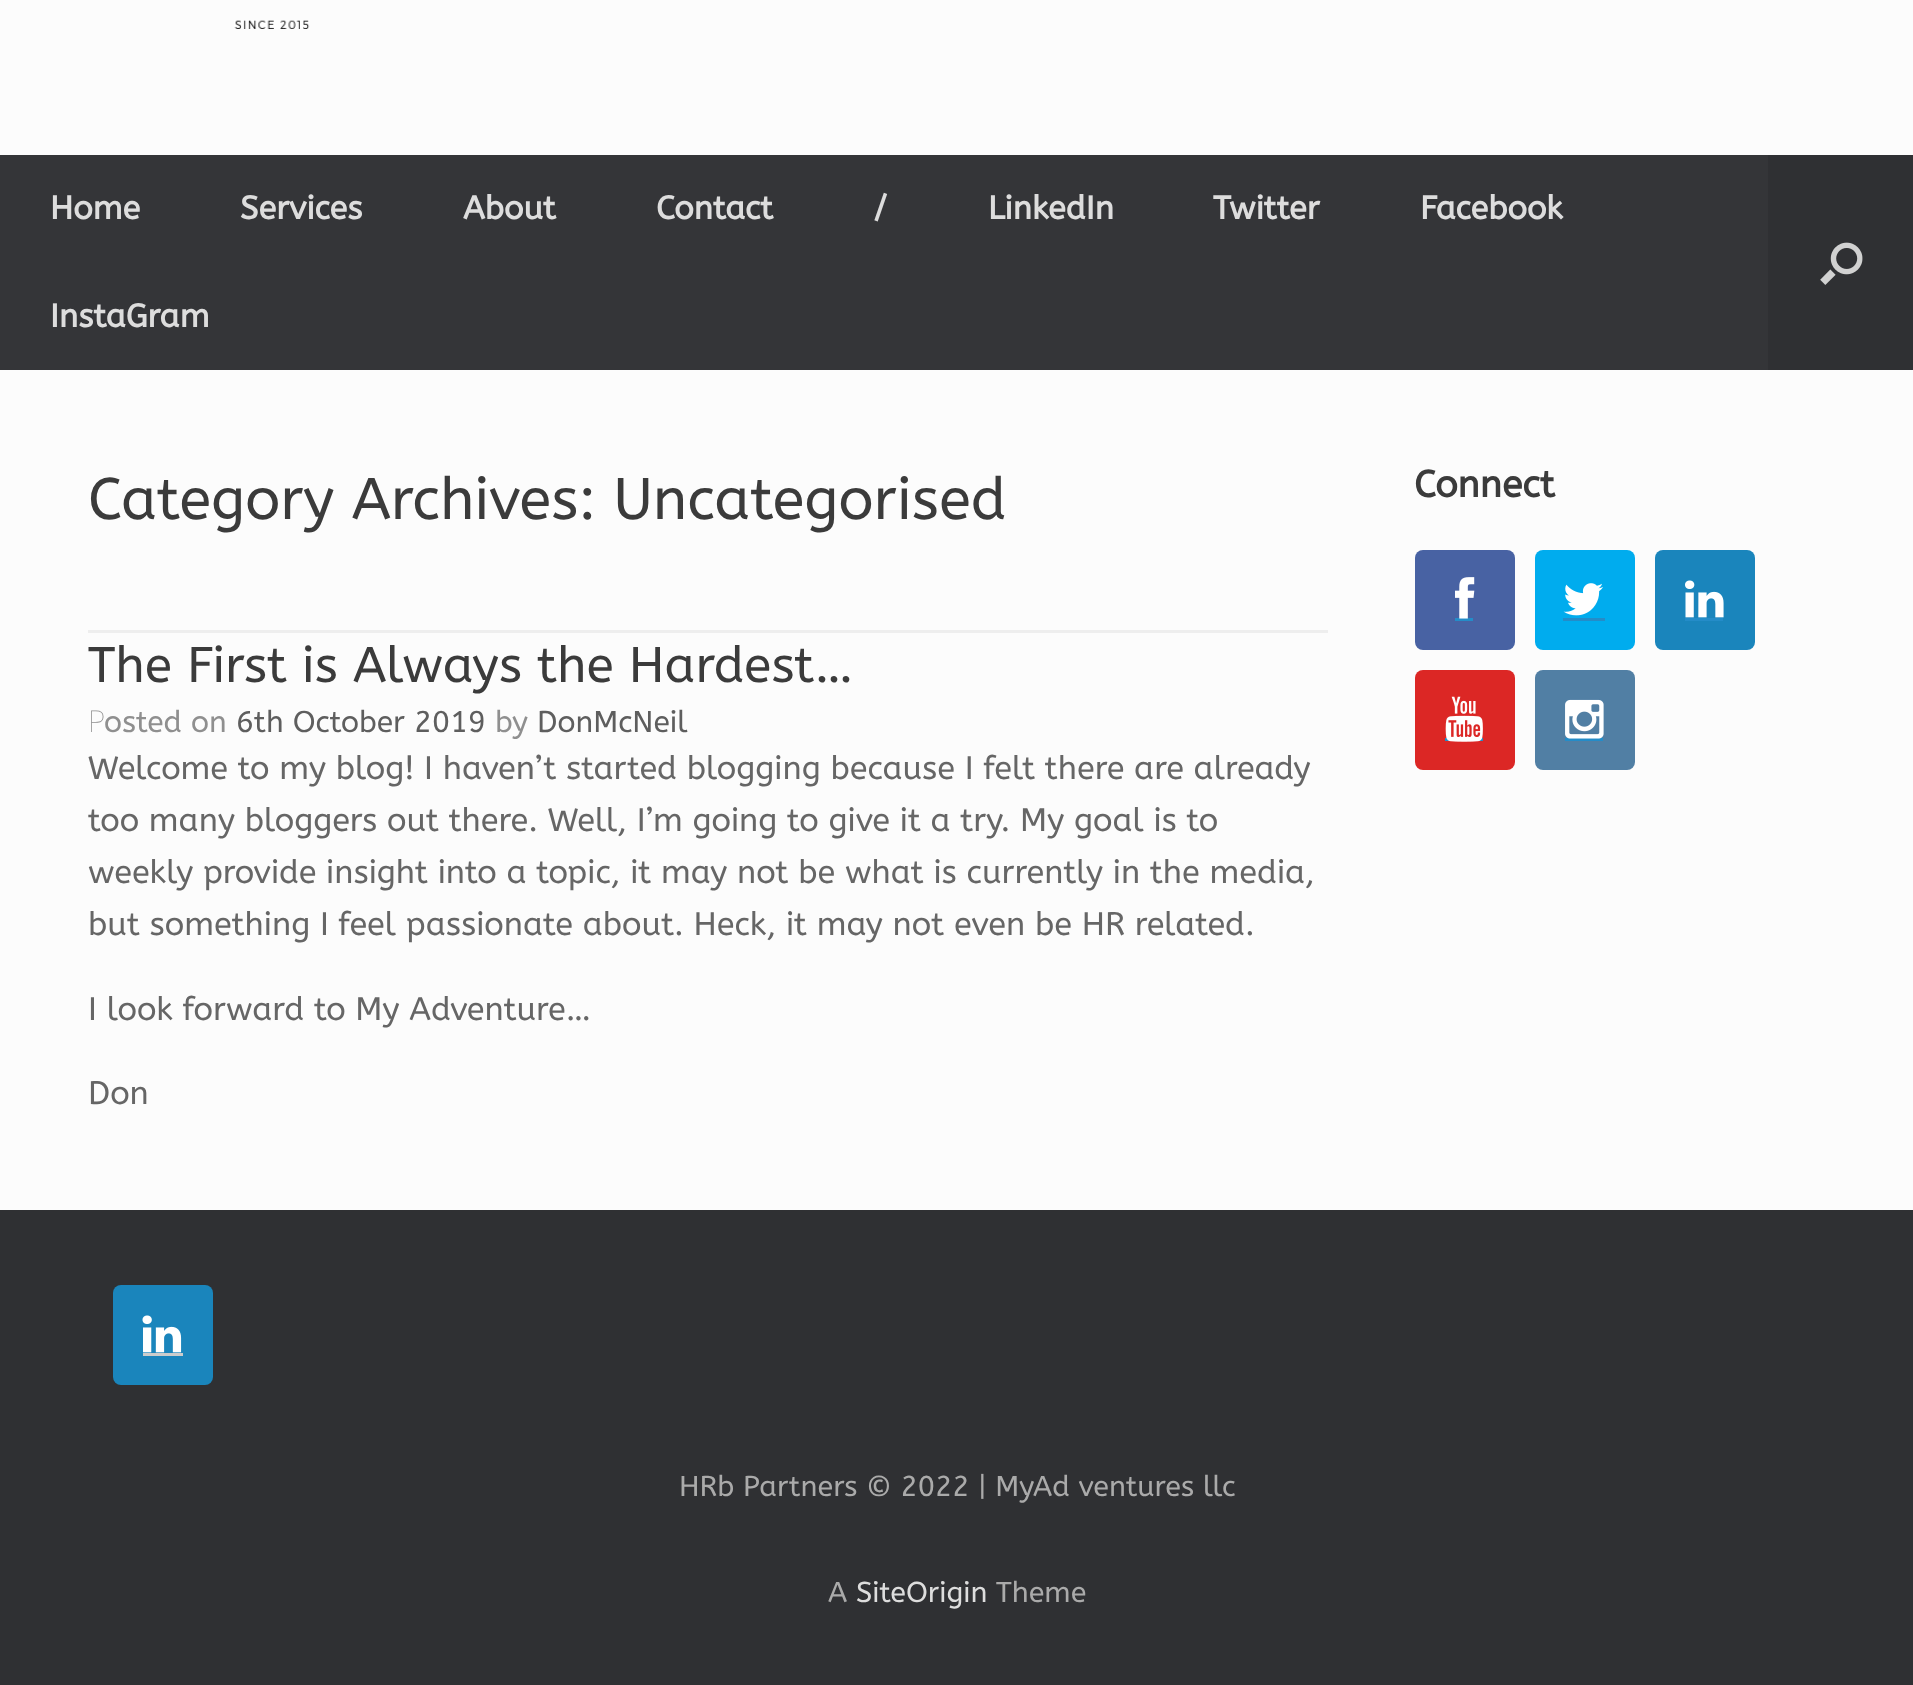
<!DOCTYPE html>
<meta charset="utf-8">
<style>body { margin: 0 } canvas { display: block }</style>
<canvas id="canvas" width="1913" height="1685"></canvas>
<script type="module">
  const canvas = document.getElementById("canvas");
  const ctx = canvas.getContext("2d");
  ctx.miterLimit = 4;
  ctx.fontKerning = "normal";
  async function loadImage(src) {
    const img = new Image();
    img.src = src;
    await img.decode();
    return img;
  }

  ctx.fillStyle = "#2f3033";
  ctx.fillRect(0, 0, 1913, 1685);
  ctx.fillStyle = "#fcfcfc";
  ctx.fillRect(0, 0, 1913, 155);
  ctx.drawImage(await loadImage("img1.png"), 234, 20, 76, 9);
  ctx.fillStyle = "#343538";
  ctx.fillRect(0, 155, 1768, 215);
  ctx.font = "bold 32.5px ABeeZee";
  ctx.fillStyle = "#dddddd";
  ctx.fillText("Home", 50, 219);
  ctx.fillText("Services", 240, 219);
  ctx.fillText("About", 463, 219);
  ctx.fillText("Contact", 656, 219);
  ctx.fillText("/", 873, 219);
  ctx.fillText("LinkedIn", 988, 219);
  ctx.fillText("Twitter", 1213, 219);
  ctx.fillText("Facebook", 1420, 219);
  ctx.fillText("InstaGram", 50, 327);
  ctx.drawImage(await loadImage("img2.png"), 1820, 242, 43, 43);
  ctx.fillStyle = "#fcfcfc";
  ctx.fillRect(0, 370, 1913, 840);
  ctx.fillStyle = "#eeeeee";
  ctx.fillRect(88, 630, 1240, 3);
  ctx.font = "58.5px ABeeZee";
  ctx.fillStyle = "#3b3b3b";
  ctx.fillText("Category Archives: Uncategorised", 88, 519);
  ctx.font = "50px ABeeZee";
  ctx.fillText("The First is Always the Hardest…", 88, 682);
  ctx.font = "100 30px Noto Sans";
  ctx.fillStyle = "#8f8f8f";
  ctx.fillText("P", 88, 732);
  ctx.font = "30px ABeeZee";
  ctx.fillText("osted on", 104, 732);
  ctx.fillStyle = "#5e5e5e";
  ctx.fillText("6th October 2019", 236, 732);
  ctx.fillStyle = "#8f8f8f";
  ctx.fillText("by", 495, 732);
  ctx.fillStyle = "#5e5e5e";
  ctx.fillText("DonMcNeil", 537, 732);
  ctx.font = "32.5px ABeeZee";
  ctx.fillStyle = "#666666";
  ctx.fillText("Welcome to my blog! I haven’t started blogging because I felt there are already", 88, 779);
  ctx.fillText("too many bloggers out there. Well, I’m going to give it a try. My goal is to", 88, 831);
  ctx.fillText("weekly provide insight into a topic, it may not be what is currently in the media,", 88, 883);
  ctx.fillText("but something I feel passionate about. Heck, it may not even be HR related.", 88, 935);
  ctx.fillText("I look forward to My Adventure…", 88, 1020);
  ctx.fillText("Don", 88, 1104);
  ctx.font = "bold 37.5px ABeeZee";
  ctx.fillStyle = "#3b3b3b";
  ctx.fillText("Connect", 1414, 497);
  ctx.fillStyle = "#4862a3";
  ctx.beginPath();
  ctx.roundRect(1415, 550, 100, 100, 8);
  ctx.fill();
  ctx.fillStyle = "#248cc8";
  ctx.fillRect(1455, 618, 18, 3);
  ctx.drawImage(await loadImage("img3.png"), 1455, 577, 20, 42);
  ctx.fillStyle = "#00acee";
  ctx.beginPath();
  ctx.roundRect(1535, 550, 100, 100, 8);
  ctx.fill();
  ctx.drawImage(await loadImage("img4.png"), 1563, 583, 40, 33);
  ctx.fillStyle = "#248cc8";
  ctx.fillRect(1563, 618, 42, 3);
  ctx.fillStyle = "#1a85bc";
  ctx.beginPath();
  ctx.roundRect(1655, 550, 100, 100, 8);
  ctx.fill();
  ctx.drawImage(await loadImage("img5.png"), 1685, 580, 39, 38);
  ctx.fillStyle = "#248cc8";
  ctx.fillRect(1685, 618, 38, 3);
  ctx.fillStyle = "#dc2725";
  ctx.beginPath();
  ctx.roundRect(1415, 670, 100, 100, 8);
  ctx.fill();
  ctx.fillStyle = "#248cc8";
  ctx.fillRect(1445, 738, 38, 3);
  ctx.drawImage(await loadImage("img6.png"), 1445, 696, 38, 46);
  ctx.fillStyle = "#517fa4";
  ctx.beginPath();
  ctx.roundRect(1535, 670, 100, 100, 8);
  ctx.fill();
  ctx.fillStyle = "#248cc8";
  ctx.fillRect(1565, 738, 38, 3);
  ctx.drawImage(await loadImage("img7.png"), 1565, 699, 39, 40);
  ctx.fillStyle = "#1a85bc";
  ctx.beginPath();
  ctx.roundRect(113, 1285, 100, 100, 8);
  ctx.fill();
  ctx.drawImage(await loadImage("img8.png"), 142, 1315, 40, 38);
  ctx.fillStyle = "#cccccc";
  ctx.fillRect(143, 1353, 40, 3);
  ctx.font = "28.75px ABeeZee";
  ctx.fillStyle = "#aaaaaa";
  ctx.fillText("HRb Partners © 2022 | MyAd ventures llc", 679, 1496);
  ctx.fillText("A", 828, 1602);
  ctx.fillStyle = "#dddddd";
  ctx.fillText("SiteOrigin", 856, 1602);
  ctx.fillStyle = "#aaaaaa";
  ctx.fillText("Theme", 996, 1602);
</script>
